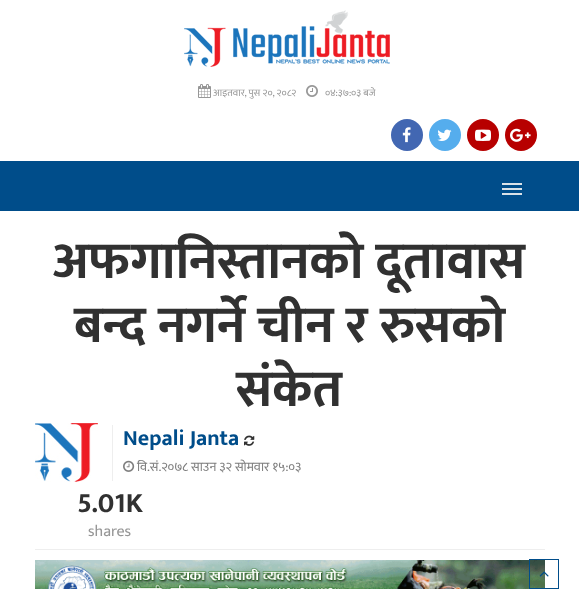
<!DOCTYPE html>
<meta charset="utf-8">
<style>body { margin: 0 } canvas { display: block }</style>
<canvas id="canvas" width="579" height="589"></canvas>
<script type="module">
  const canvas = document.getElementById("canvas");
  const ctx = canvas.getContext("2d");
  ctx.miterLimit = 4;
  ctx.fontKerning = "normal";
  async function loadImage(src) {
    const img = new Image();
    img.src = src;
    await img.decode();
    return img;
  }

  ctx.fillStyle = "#ffffff";
  ctx.fillRect(0, 0, 579, 589);
  ctx.drawImage(await loadImage("img1.png"), 184, 10, 206, 57);
  ctx.drawImage(await loadImage("img2.png"), 198, 84, 13, 14);
  ctx.font = "10px Ek Mukta";
  ctx.fillStyle = "#979797";
  ctx.fillText("आइतवार, पुस २०, २०८२", 213, 96);
  ctx.drawImage(await loadImage("img3.png"), 306, 85, 12, 12);
  ctx.fillText("०४:३७:०३ बजे", 325, 96);
  ctx.fillStyle = "#4267b2";
  ctx.beginPath();
  ctx.arc(407, 135, 16, 0, Math.PI * 2);
  ctx.fill();
  ctx.drawImage(await loadImage("img4.png"), 402, 127, 9, 16);
  ctx.fillStyle = "#55aded";
  ctx.beginPath();
  ctx.arc(445, 135, 16, 0, Math.PI * 2);
  ctx.fill();
  ctx.drawImage(await loadImage("img5.png"), 437, 129, 15, 12);
  ctx.fillStyle = "#b70000";
  ctx.beginPath();
  ctx.arc(483, 135, 16, 0, Math.PI * 2);
  ctx.fill();
  ctx.drawImage(await loadImage("img6.png"), 475, 129, 16, 12);
  ctx.beginPath();
  ctx.arc(521, 135, 16, 0, Math.PI * 2);
  ctx.fill();
  ctx.drawImage(await loadImage("img7.png"), 510, 128, 21, 14);
  ctx.fillStyle = "#004d8a";
  ctx.fillRect(0, 161, 579, 50);
  ctx.fillStyle = "#dae2e8";
  ctx.fillRect(502, 183, 20, 2);
  ctx.fillRect(502, 188, 20, 2);
  ctx.fillRect(502, 193, 20, 2);
  ctx.font = "bold 52px Ek Mukta";
  ctx.fillStyle = "#313131";
  ctx.fillText("अफगानिस्तानको दूतावास", 53, 278);
  ctx.fillText("बन्द नगर्ने चीन र रुसको", 74, 342);
  ctx.fillText("संकेत", 236, 406);
  ctx.fillStyle = "#eeeeee";
  ctx.fillRect(35, 549, 510, 1);
  ctx.drawImage(await loadImage("img8.png"), 35, 423, 63, 59);
  ctx.fillRect(112, 425, 1, 56);
  ctx.font = "bold 22px Ek Mukta";
  ctx.fillStyle = "#004d8a";
  ctx.fillText("Nepali Janta", 123, 445);
  ctx.drawImage(await loadImage("img9.png"), 244, 435, 11, 11);
  ctx.drawImage(await loadImage("img10.png"), 123, 460, 12, 12);
  ctx.font = "13px Ek Mukta";
  ctx.fillStyle = "#7e7e7e";
  ctx.fillText("वि.सं.२०७८ साउन ३२ सोमवार १५:०३", 137, 471);
  ctx.font = "bold 28px Ek Mukta";
  ctx.fillStyle = "#313131";
  ctx.fillText("5.01K", 77, 512);
  ctx.font = "16px Ek Mukta";
  ctx.fillStyle = "#979797";
  ctx.fillText("shares", 88, 536);
  ctx.drawImage(await loadImage("img11.png"), 35, 560, 510, 29);
  ctx.strokeStyle = "#004d8a";
  ctx.strokeRect(529.5, 559.5, 29, 29);
  ctx.drawImage(await loadImage("img12.png"), 539, 571, 10, 6);
</script>
